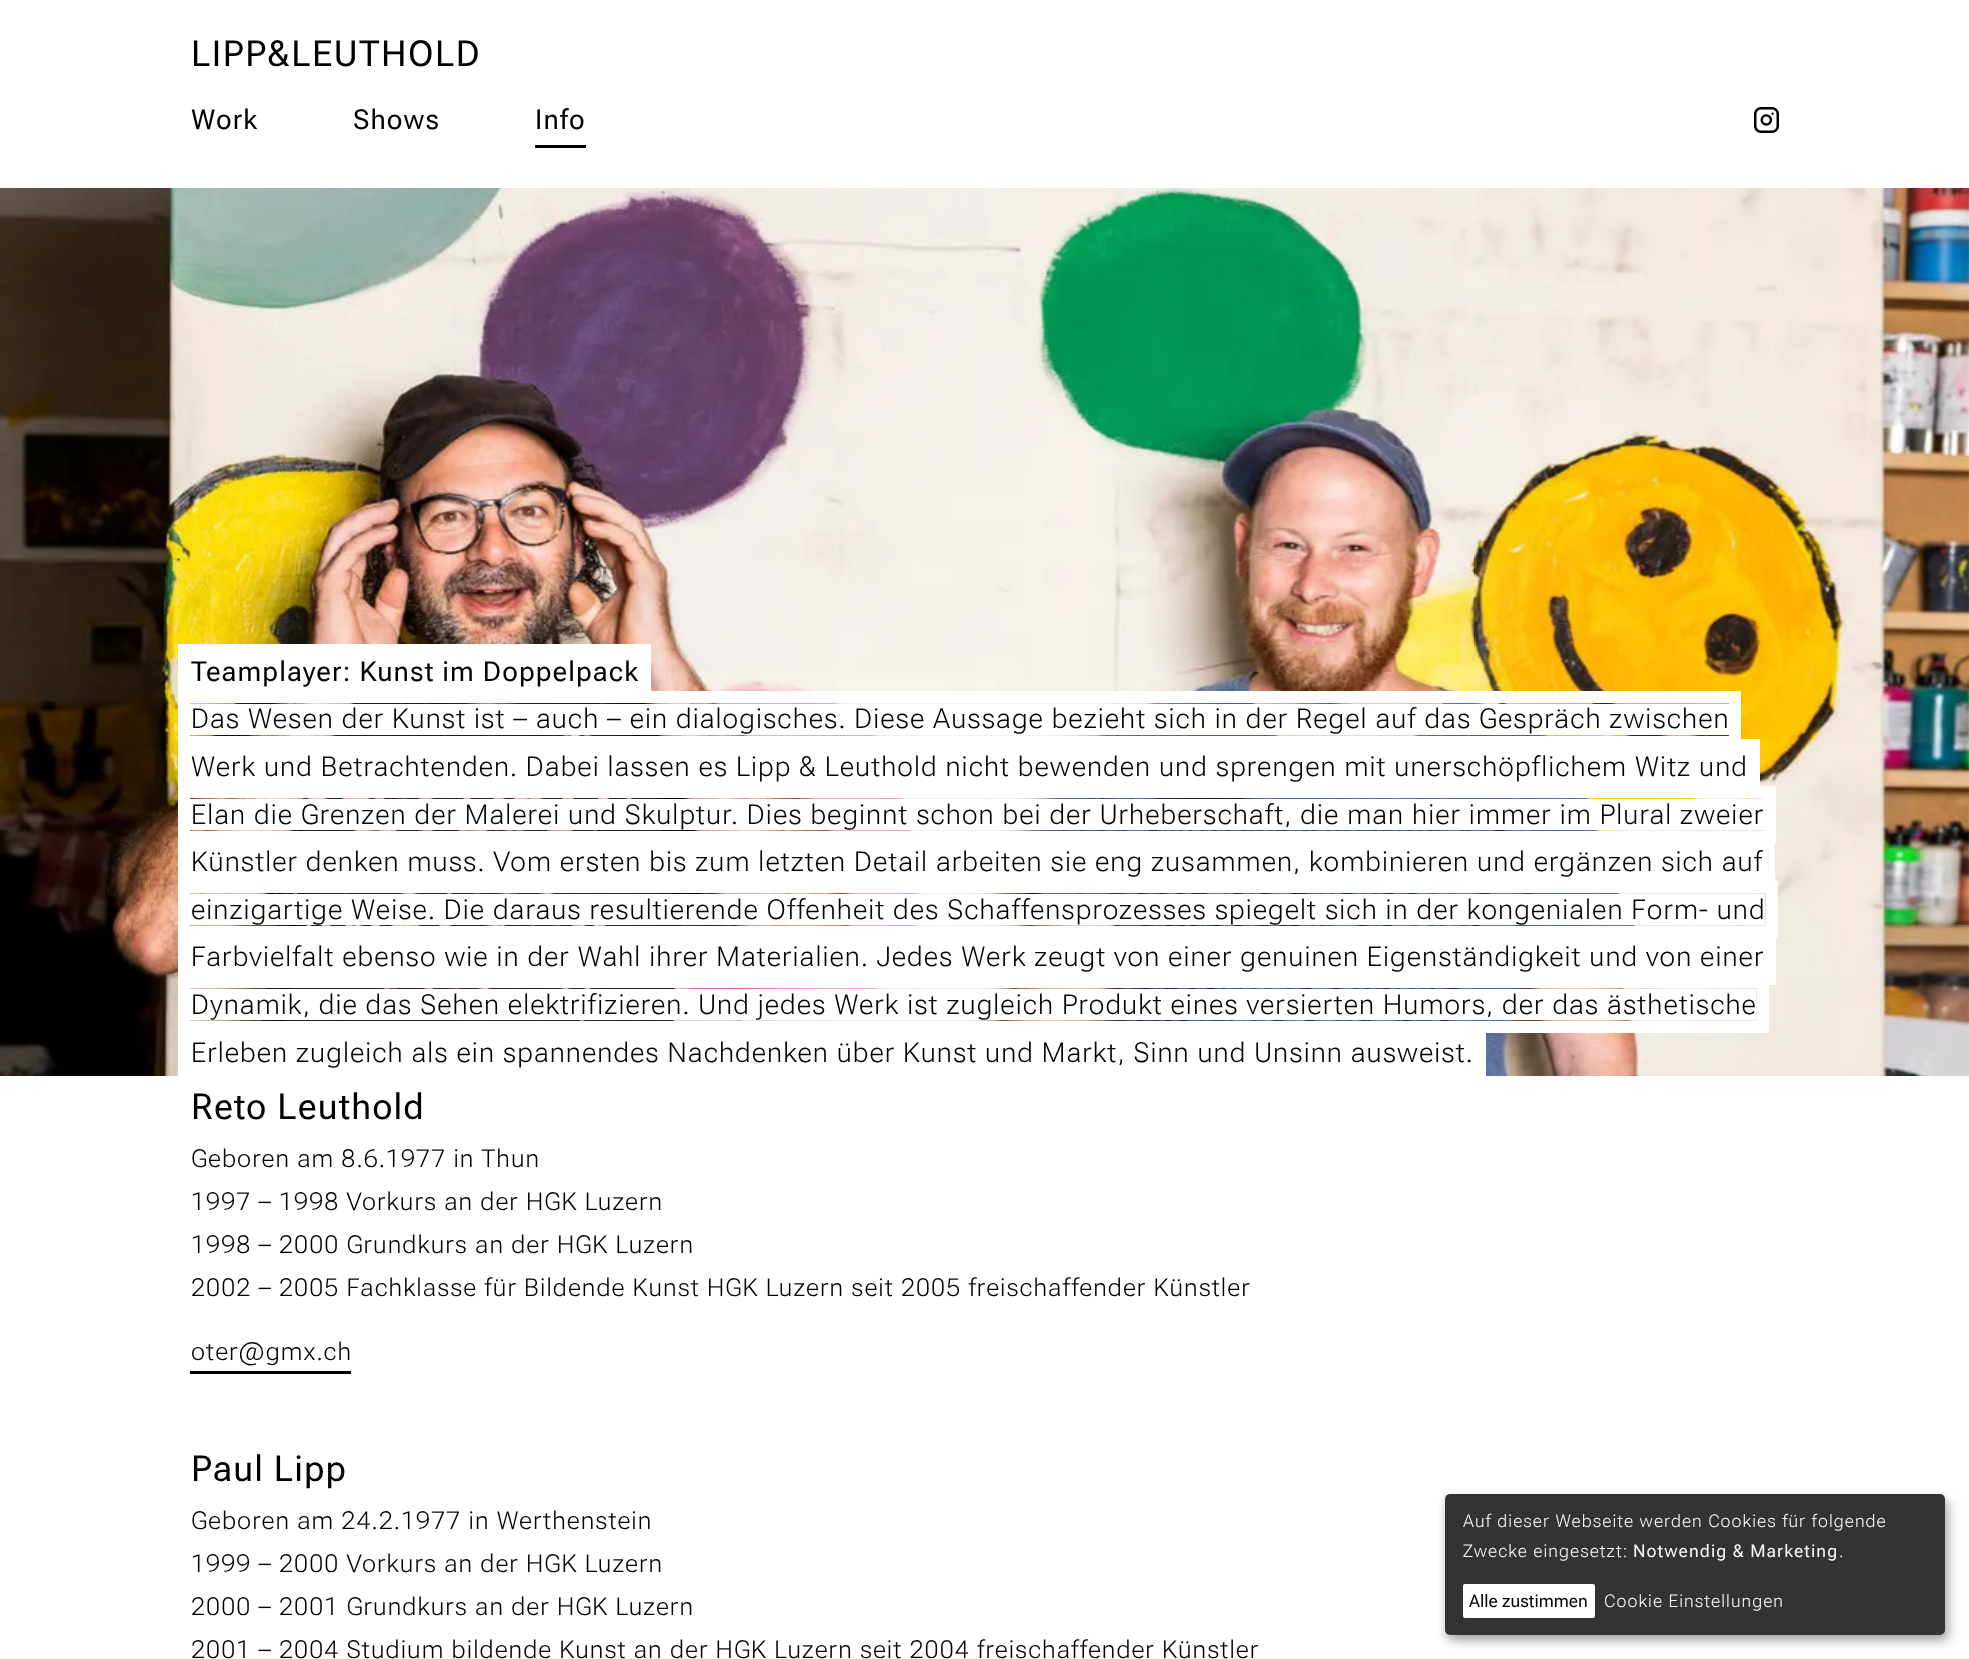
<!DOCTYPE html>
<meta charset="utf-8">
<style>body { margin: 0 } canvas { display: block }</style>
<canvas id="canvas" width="1969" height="1659"></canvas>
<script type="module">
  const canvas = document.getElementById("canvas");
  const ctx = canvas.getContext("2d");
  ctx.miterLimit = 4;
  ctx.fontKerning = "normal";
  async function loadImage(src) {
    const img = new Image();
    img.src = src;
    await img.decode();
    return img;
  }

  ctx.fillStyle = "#ffffff";
  ctx.fillRect(0, 0, 1969, 1659);
  ctx.letterSpacing = "1.5px";
  ctx.font = "35.75px Roboto Flex";
  ctx.fillStyle = "#000000";
  ctx.fillText("LIPP&LEUTHOLD", 191, 66);
  ctx.letterSpacing = "1.1px";
  ctx.font = "27.5px Roboto Flex";
  ctx.fillText("Work", 191, 129);
  ctx.fillText("Shows", 353, 129);
  ctx.fillText("Info", 535, 129);
  ctx.fillRect(535, 145, 51, 3);
  ctx.drawImage(await loadImage("img1.png"), 1754, 107, 25, 26);
  ctx.drawImage(await loadImage("img2.png"), 0, 188, 1969, 888);
  ctx.strokeStyle = "#ffffff";
  ctx.lineWidth = 12;
  ctx.strokeRect(184, 650, 461, 44);
  ctx.fillStyle = "#ffffff";
  ctx.fillRect(190, 656, 449, 32);
  ctx.fillStyle = "#000000";
  ctx.fillText("Teamplayer: Kunst im Doppelpack", 191, 681);
  ctx.strokeRect(184, 697, 1551, 45);
  ctx.fillStyle = "#ffffff";
  ctx.fillRect(190, 704, 1539, 31);
  ctx.font = "200 27.5px Roboto Flex";
  ctx.fillStyle = "#000000";
  ctx.fillText("Das Wesen der Kunst ist – auch – ein dialogisches. Diese Aussage bezieht sich in der Regel auf das Gespräch zwischen", 191, 728);
  ctx.strokeRect(184, 745, 1570, 44);
  ctx.fillStyle = "#ffffff";
  ctx.fillRect(190, 751, 1558, 32);
  ctx.fillStyle = "#000000";
  ctx.fillText("Werk und Betrachtenden. Dabei lassen es Lipp & Leuthold nicht bewenden und sprengen mit unerschöpflichem Witz und", 191, 776);
  ctx.strokeRect(184, 792, 1586, 45);
  ctx.fillStyle = "#ffffff";
  ctx.fillRect(190, 799, 1574, 31);
  ctx.fillStyle = "#000000";
  ctx.fillText("Elan die Grenzen der Malerei und Skulptur. Dies beginnt schon bei der Urheberschaft, die man hier immer im Plural zweier", 191, 824);
  ctx.strokeRect(184, 840, 1585, 44);
  ctx.fillStyle = "#ffffff";
  ctx.fillRect(190, 846, 1573, 32);
  ctx.fillStyle = "#000000";
  ctx.fillText("Künstler denken muss. Vom ersten bis zum letzten Detail arbeiten sie eng zusammen, kombinieren und ergänzen sich auf", 191, 871);
  ctx.strokeRect(184, 887, 1588, 45);
  ctx.fillStyle = "#ffffff";
  ctx.fillRect(190, 894, 1575, 31);
  ctx.fillStyle = "#000000";
  ctx.fillText("einzigartige Weise. Die daraus resultierende Offenheit des Schaffensprozesses spiegelt sich in der kongenialen Form- und", 191, 919);
  ctx.strokeRect(184, 935, 1586, 44);
  ctx.fillStyle = "#ffffff";
  ctx.fillRect(190, 941, 1574, 32);
  ctx.fillStyle = "#000000";
  ctx.fillText("Farbvielfalt ebenso wie in der Wahl ihrer Materialien. Jedes Werk zeugt von einer genuinen Eigenständigkeit und von einer", 191, 966);
  ctx.strokeRect(184, 982, 1579, 45);
  ctx.fillStyle = "#ffffff";
  ctx.fillRect(190, 989, 1566, 31);
  ctx.fillStyle = "#000000";
  ctx.fillText("Dynamik, die das Sehen elektrifizieren. Und jedes Werk ist zugleich Produkt eines versierten Humors, der das ästhetische", 191, 1014);
  ctx.save();
  ctx.beginPath();
  ctx.rect(0, 188, 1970, 888);
  ctx.clip();
  ctx.strokeRect(184, 1030, 1296, 44);
  ctx.restore();
  ctx.fillStyle = "#ffffff";
  ctx.fillRect(190, 1036, 1284, 32);
  ctx.fillStyle = "#000000";
  ctx.fillText("Erleben zugleich als ein spannendes Nachdenken über Kunst und Markt, Sinn und Unsinn ausweist.", 191, 1062);
  ctx.font = "35.75px Roboto Flex";
  ctx.fillText("Reto Leuthold", 191, 1119);
  ctx.font = "200 24.75px Roboto Flex";
  ctx.fillText("Geboren am 8.6.1977 in Thun", 191, 1167);
  ctx.fillText("1997 – 1998 Vorkurs an der HGK Luzern", 191, 1210);
  ctx.fillText("1998 – 2000 Grundkurs an der HGK Luzern", 191, 1253);
  ctx.fillText("2002 – 2005 Fachklasse für Bildende Kunst HGK Luzern seit 2005 freischaffender Künstler", 191, 1296);
  ctx.fillText("oter@gmx.ch", 191, 1360);
  ctx.fillRect(190, 1371, 161, 3);
  ctx.font = "35.75px Roboto Flex";
  ctx.fillText("Paul Lipp", 191, 1481);
  ctx.font = "200 24.75px Roboto Flex";
  ctx.fillText("Geboren am 24.2.1977 in Werthenstein", 191, 1529);
  ctx.fillText("1999 – 2000 Vorkurs an der HGK Luzern", 191, 1572);
  ctx.fillText("2000 – 2001 Grundkurs an der HGK Luzern", 191, 1615);
  ctx.fillText("2001 – 2004 Studium bildende Kunst an der HGK Luzern seit 2004 freischaffender Künstler", 191, 1658);
  ctx.fillStyle = "rgba(0, 0, 0, 0.19)";
  ctx.filter = "blur(6px)";
  ctx.beginPath();
  ctx.roundRect(1451, 1500, 500, 141, 5);
  ctx.fill();
  ctx.filter = "none";
  ctx.fillStyle = "rgba(0, 0, 0, 0.2)";
  ctx.filter = "blur(4px)";
  ctx.beginPath();
  ctx.roundRect(1445, 1499, 500, 141, 5);
  ctx.fill();
  ctx.filter = "none";
  ctx.fillStyle = "#333333";
  ctx.beginPath();
  ctx.roundRect(1445, 1494, 500, 141, 5);
  ctx.fill();
  ctx.font = "200 17.5px Roboto Flex";
  ctx.fillStyle = "#fafafa";
  ctx.fillText("Auf dieser Webseite werden Cookies für folgende", 1463, 1527);
  ctx.fillText("Zwecke eingesetzt:", 1463, 1557);
  ctx.font = "17.5px Roboto Flex";
  ctx.fillText("Notwendig & Marketing", 1633, 1557);
  ctx.font = "200 17.5px Roboto Flex";
  ctx.fillText(".", 1839, 1557);
  ctx.fillStyle = "#ffffff";
  ctx.beginPath();
  ctx.roundRect(1463, 1584, 132, 34, 2);
  ctx.fill();
  ctx.letterSpacing = "0px";
  ctx.font = "17.5px Roboto Flex";
  ctx.fillStyle = "#000000";
  ctx.fillText("Alle zustimmen", 1469, 1607);
  ctx.letterSpacing = "1.1px";
  ctx.font = "200 17.5px Roboto Flex";
  ctx.fillStyle = "#fafafa";
  ctx.fillText("Cookie Einstellungen", 1604, 1607);
</script>
